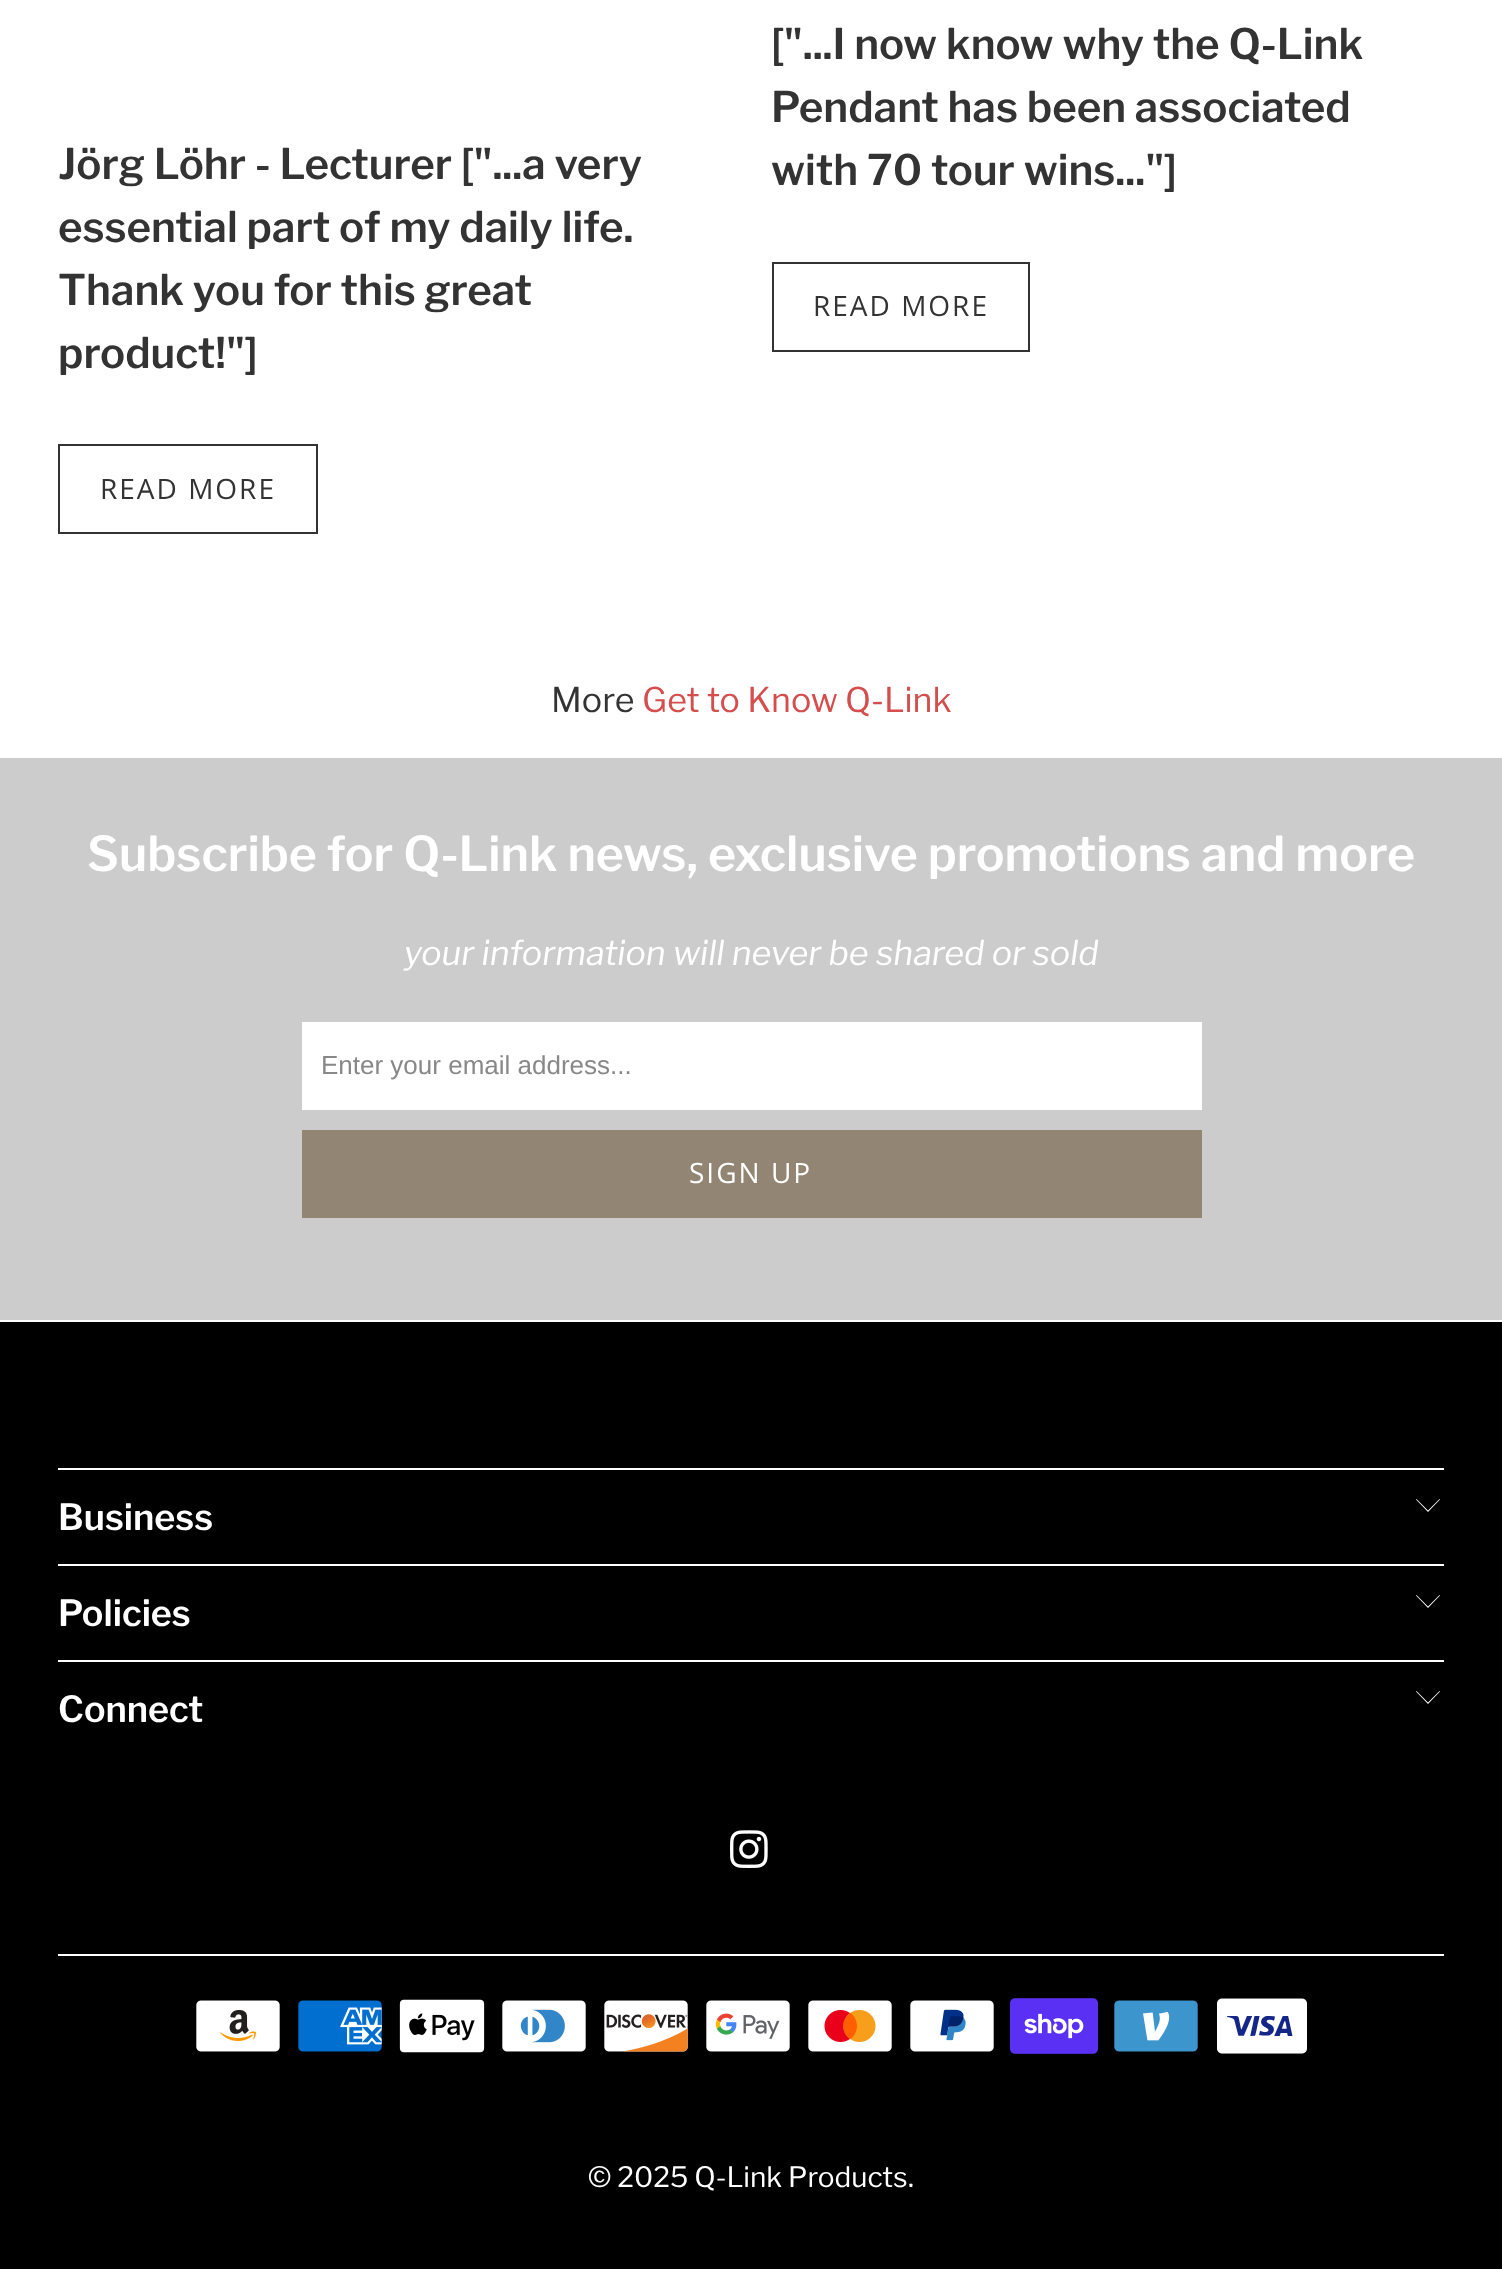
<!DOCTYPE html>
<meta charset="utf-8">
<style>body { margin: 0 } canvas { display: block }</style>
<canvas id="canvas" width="1502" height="2269"></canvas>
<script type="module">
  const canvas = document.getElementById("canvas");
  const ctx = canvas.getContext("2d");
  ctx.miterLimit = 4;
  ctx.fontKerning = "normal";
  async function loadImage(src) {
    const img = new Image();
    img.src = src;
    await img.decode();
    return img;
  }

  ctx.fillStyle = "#ffffff";
  ctx.fillRect(0, 0, 1502, 2269);
  ctx.font = "600 42px Libre Franklin";
  ctx.fillStyle = "#333333";
  ctx.fillText("Jörg Löhr - Lecturer [\"...a very", 58, 179);
  ctx.fillText("essential part of my daily life.", 58, 242);
  ctx.fillText("Thank you for this great", 58, 305);
  ctx.fillText("product!\"]", 58, 368);
  ctx.strokeStyle = "#333333";
  ctx.lineWidth = 2;
  ctx.strokeRect(59, 445, 258, 88);
  ctx.letterSpacing = "2px";
  ctx.font = "28px Open Sans";
  ctx.fillText("READ MORE", 100, 499);
  ctx.letterSpacing = "0px";
  ctx.font = "600 42px Libre Franklin";
  ctx.fillText("[\"...I now know why the Q-Link", 771, 59);
  ctx.fillText("Pendant has been associated", 771, 122);
  ctx.fillText("with 70 tour wins...\"]", 771, 185);
  ctx.strokeRect(773, 263, 256, 88);
  ctx.letterSpacing = "2px";
  ctx.font = "28px Open Sans";
  ctx.fillText("READ MORE", 813, 316);
  ctx.letterSpacing = "0px";
  ctx.font = "34px Libre Franklin";
  ctx.fillText("More", 551, 712);
  ctx.fillStyle = "#d54d4d";
  ctx.fillText("Get to Know Q-Link", 642, 712);
  ctx.fillStyle = "#cccccc";
  ctx.fillRect(0, 758, 1502, 562);
  ctx.font = "600 48px Libre Franklin";
  ctx.fillStyle = "#ffffff";
  ctx.fillText("Subscribe for Q-Link news, exclusive promotions and more", 87, 871);
  ctx.font = "italic 34px Libre Franklin";
  ctx.fillText("your information will never be shared or sold", 404, 965);
  ctx.fillRect(302, 1022, 900, 88);
  ctx.font = "26px Liberation Sans";
  ctx.fillStyle = "#888888";
  ctx.fillText("Enter your email address...", 321, 1074);
  ctx.fillStyle = "#928573";
  ctx.fillRect(302, 1130, 900, 88);
  ctx.letterSpacing = "2px";
  ctx.font = "28px Open Sans";
  ctx.fillStyle = "#ffffff";
  ctx.fillText("SIGN UP", 689, 1183);
  ctx.fillStyle = "#000000";
  ctx.fillRect(0, 1322, 1502, 947);
  ctx.fillStyle = "#ffffff";
  ctx.fillRect(58, 1468, 1386, 2);
  ctx.letterSpacing = "0px";
  ctx.font = "600 36px Libre Franklin";
  ctx.fillText("Business", 58, 1530);
  ctx.beginPath();
  ctx.moveTo(1428, 1512);
  ctx.lineTo(1416, 1499.5);
  ctx.lineTo(1416.5, 1499);
  ctx.lineTo(1428, 1510.5);
  ctx.lineTo(1439.5, 1499);
  ctx.lineTo(1440, 1499.5);
  ctx.closePath();
  ctx.fill();
  ctx.fillRect(58, 1564, 1386, 2);
  ctx.fillText("Policies", 58, 1626);
  ctx.beginPath();
  ctx.moveTo(1428, 1608);
  ctx.lineTo(1416, 1595.5);
  ctx.lineTo(1416.5, 1595);
  ctx.lineTo(1428, 1606.5);
  ctx.lineTo(1439.5, 1595);
  ctx.lineTo(1440, 1595.5);
  ctx.closePath();
  ctx.fill();
  ctx.fillRect(58, 1660, 1386, 2);
  ctx.fillText("Connect", 58, 1722);
  ctx.beginPath();
  ctx.moveTo(1428, 1704);
  ctx.lineTo(1416, 1691.5);
  ctx.lineTo(1416.5, 1691);
  ctx.lineTo(1428, 1702.5);
  ctx.lineTo(1439.5, 1691);
  ctx.lineTo(1440, 1691.5);
  ctx.closePath();
  ctx.fill();
  ctx.drawImage(await loadImage("img1.png"), 730, 1830, 38, 38);
  ctx.fillRect(58, 1954, 1386, 2);
  ctx.drawImage(await loadImage("img2.png"), 196, 2000, 84, 52);
  ctx.drawImage(await loadImage("img3.png"), 298, 2000, 84, 52);
  ctx.drawImage(await loadImage("img4.png"), 399, 1999, 86, 54);
  ctx.drawImage(await loadImage("img5.png"), 502, 2000, 84, 52);
  ctx.drawImage(await loadImage("img6.png"), 604, 2000, 84, 52);
  ctx.drawImage(await loadImage("img7.png"), 706, 2000, 84, 52);
  ctx.drawImage(await loadImage("img8.png"), 808, 2000, 84, 52);
  ctx.drawImage(await loadImage("img9.png"), 910, 2000, 84, 52);
  ctx.drawImage(await loadImage("img10.png"), 1010, 1998, 88, 56);
  ctx.drawImage(await loadImage("img11.png"), 1114, 2000, 84, 52);
  ctx.drawImage(await loadImage("img12.png"), 1217, 1998, 90, 56);
  ctx.font = "28px Libre Franklin";
  ctx.fillText("© 2025 Q-Link Products", 588, 2187);
  ctx.fillText(".", 908, 2187);
</script>
